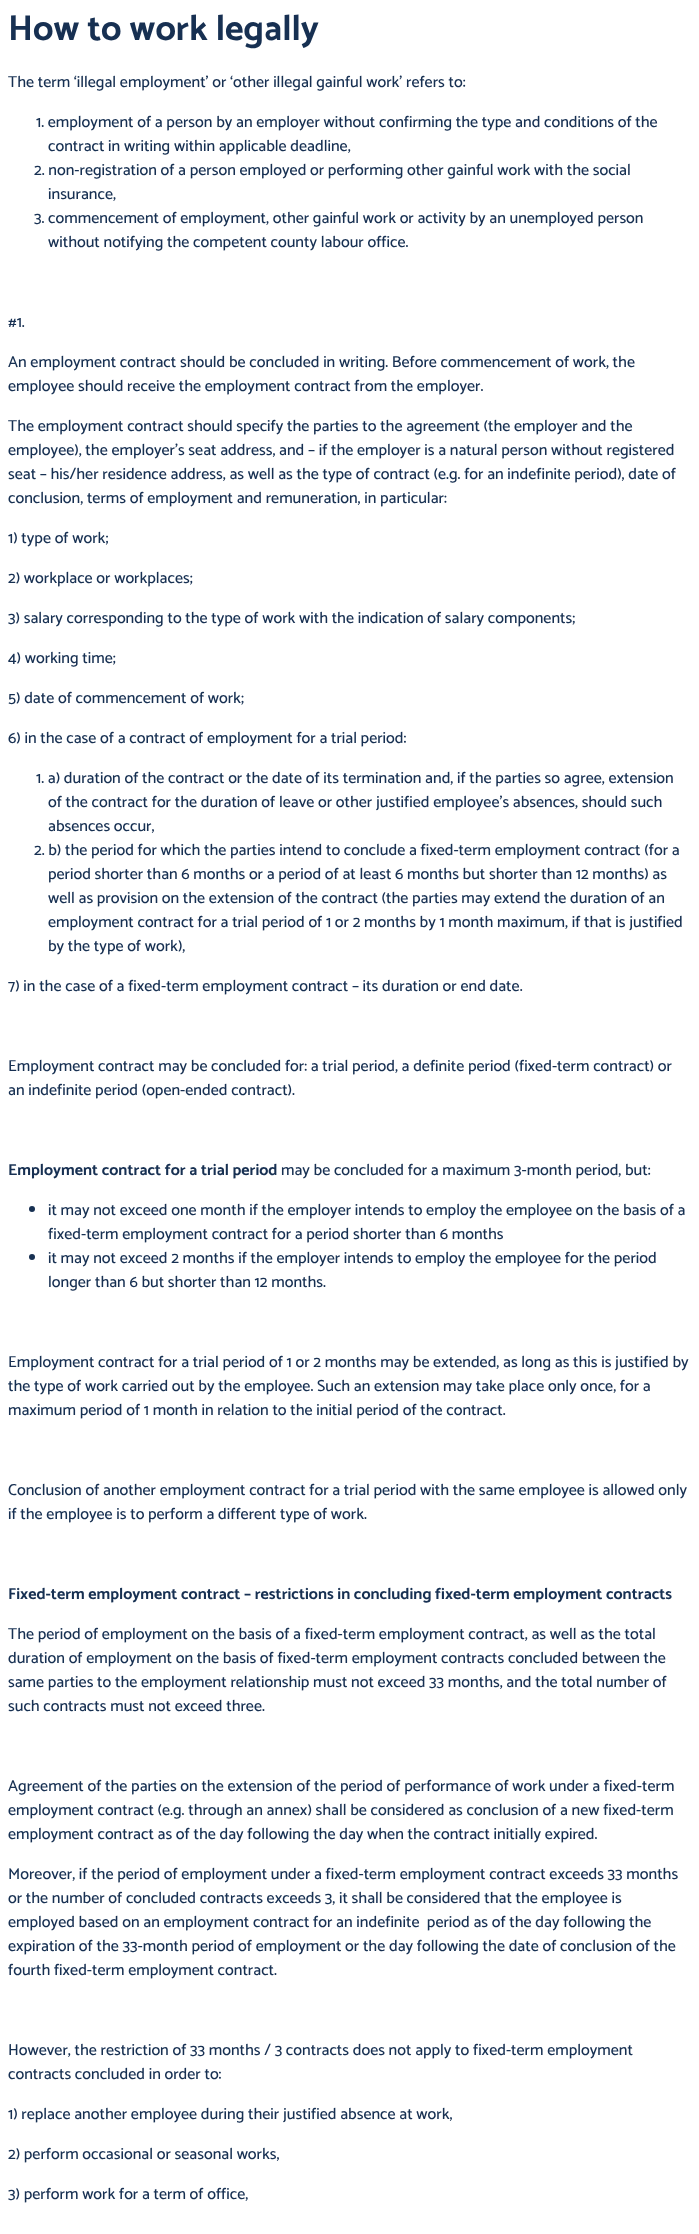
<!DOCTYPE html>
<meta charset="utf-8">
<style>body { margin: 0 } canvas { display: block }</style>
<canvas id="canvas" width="699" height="2234"></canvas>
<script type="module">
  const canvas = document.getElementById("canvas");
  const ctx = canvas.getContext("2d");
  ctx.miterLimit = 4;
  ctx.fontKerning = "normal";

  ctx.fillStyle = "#ffffff";
  ctx.fillRect(0, 0, 699, 2234);
  ctx.font = "bold 36px Catamaran";
  ctx.fillStyle = "#173052";
  ctx.fillText("How to work legally", 8, 40);
  ctx.font = "500 16px Catamaran";
  ctx.fillText("The term ‘illegal employment’ or ‘other illegal gainful work’ refers to:", 8, 87);
  ctx.fillText("1. employment of a person by an employer without confirming the type and conditions of the", 36, 127);
  ctx.fillText("contract in writing within applicable deadline,", 48, 151);
  ctx.fillText("2. non-registration of a person employed or performing other gainful work with the social", 34, 175);
  ctx.fillText("insurance,", 48, 199);
  ctx.fillText("3. commencement of employment, other gainful work or activity by an unemployed person", 34, 223);
  ctx.fillText("without notifying the competent county labour office.", 48, 247);
  ctx.fillText("#1.", 8, 327);
  ctx.fillText("An employment contract should be concluded in writing. Before commencement of work, the", 8, 367);
  ctx.fillText("employee should receive the employment contract from the employer.", 8, 391);
  ctx.fillText("The employment contract should specify the parties to the agreement (the employer and the", 8, 431);
  ctx.fillText("employee), the employer’s seat address, and – if the employer is a natural person without registered", 8, 455);
  ctx.fillText("seat – his/her residence address, as well as the type of contract (e.g. for an indefinite period), date of", 8, 479);
  ctx.fillText("conclusion, terms of employment and remuneration, in particular:", 8, 503);
  ctx.fillText("1) type of work;", 8, 543);
  ctx.fillText("2) workplace or workplaces;", 8, 583);
  ctx.fillText("3) salary corresponding to the type of work with the indication of salary components;", 8, 623);
  ctx.fillText("4) working time;", 8, 663);
  ctx.fillText("5) date of commencement of work;", 8, 703);
  ctx.fillText("6) in the case of a contract of employment for a trial period:", 8, 743);
  ctx.fillText("1. a) duration of the contract or the date of its termination and, if the parties so agree, extension", 36, 783);
  ctx.fillText("of the contract for the duration of leave or other justified employee’s absences, should such", 48, 807);
  ctx.fillText("absences occur,", 48, 831);
  ctx.fillText("2. b) the period for which the parties intend to conclude a fixed-term employment contract (for a", 34, 855);
  ctx.fillText("period shorter than 6 months or a period of at least 6 months but shorter than 12 months) as", 48, 879);
  ctx.fillText("well as provision on the extension of the contract (the parties may extend the duration of an", 48, 903);
  ctx.fillText("employment contract for a trial period of 1 or 2 months by 1 month maximum, if that is justified", 48, 927);
  ctx.fillText("by the type of work),", 48, 951);
  ctx.fillText("7) in the case of a fixed-term employment contract – its duration or end date.", 8, 991);
  ctx.fillText("Employment contract may be concluded for: a trial period, a definite period (fixed-term contract) or", 8, 1071);
  ctx.fillText("an indefinite period (open-ended contract).", 8, 1095);
  ctx.font = "bold 16px Catamaran";
  ctx.fillText("Employment contract for a trial period", 8, 1175);
  ctx.font = "500 16px Catamaran";
  ctx.fillText("may be concluded for a maximum 3-month period, but:", 281, 1175);
  ctx.beginPath();
  ctx.arc(32, 1209, 3, 0, Math.PI * 2);
  ctx.fill();
  ctx.fillText("it may not exceed one month if the employer intends to employ the employee on the basis of a", 48, 1215);
  ctx.fillText("fixed-term employment contract for a period shorter than 6 months", 48, 1239);
  ctx.beginPath();
  ctx.arc(32, 1257, 3, 0, Math.PI * 2);
  ctx.fill();
  ctx.fillText("it may not exceed 2 months if the employer intends to employ the employee for the period", 48, 1263);
  ctx.fillText("longer than 6 but shorter than 12 months.", 48, 1287);
  ctx.fillText("Employment contract for a trial period of 1 or 2 months may be extended, as long as this is justified by", 8, 1367);
  ctx.fillText("the type of work carried out by the employee. Such an extension may take place only once, for a", 8, 1391);
  ctx.fillText("maximum period of 1 month in relation to the initial period of the contract.", 8, 1415);
  ctx.fillText("Conclusion of another employment contract for a trial period with the same employee is allowed only", 8, 1495);
  ctx.fillText("if the employee is to perform a different type of work.", 8, 1519);
  ctx.font = "bold 16px Catamaran";
  ctx.fillText("Fixed-term employment contract – restrictions in concluding fixed-term employment contracts", 8, 1599);
  ctx.font = "500 16px Catamaran";
  ctx.fillText("The period of employment on the basis of a fixed-term employment contract, as well as the total", 8, 1639);
  ctx.fillText("duration of employment on the basis of fixed-term employment contracts concluded between the", 8, 1663);
  ctx.fillText("same parties to the employment relationship must not exceed 33 months, and the total number of", 8, 1687);
  ctx.fillText("such contracts must not exceed three.", 8, 1711);
  ctx.fillText("Agreement of the parties on the extension of the period of performance of work under a fixed-term", 8, 1791);
  ctx.fillText("employment contract (e.g. through an annex) shall be considered as conclusion of a new fixed-term", 8, 1815);
  ctx.fillText("employment contract as of the day following the day when the contract initially expired.", 8, 1839);
  ctx.fillText("Moreover, if the period of employment under a fixed-term employment contract exceeds 33 months", 8, 1879);
  ctx.fillText("or the number of concluded contracts exceeds 3, it shall be considered that the employee is", 8, 1903);
  ctx.fillText("employed based on an employment contract for an indefinite  period as of the day following the", 8, 1927);
  ctx.fillText("expiration of the 33-month period of employment or the day following the date of conclusion of the", 8, 1951);
  ctx.fillText("fourth fixed-term employment contract.", 8, 1975);
  ctx.fillText("However, the restriction of 33 months / 3 contracts does not apply to fixed-term employment", 8, 2055);
  ctx.fillText("contracts concluded in order to:", 8, 2079);
  ctx.fillText("1) replace another employee during their justified absence at work,", 8, 2119);
  ctx.fillText("2) perform occasional or seasonal works,", 8, 2159);
  ctx.fillText("3) perform work for a term of office,", 8, 2199);
</script>
